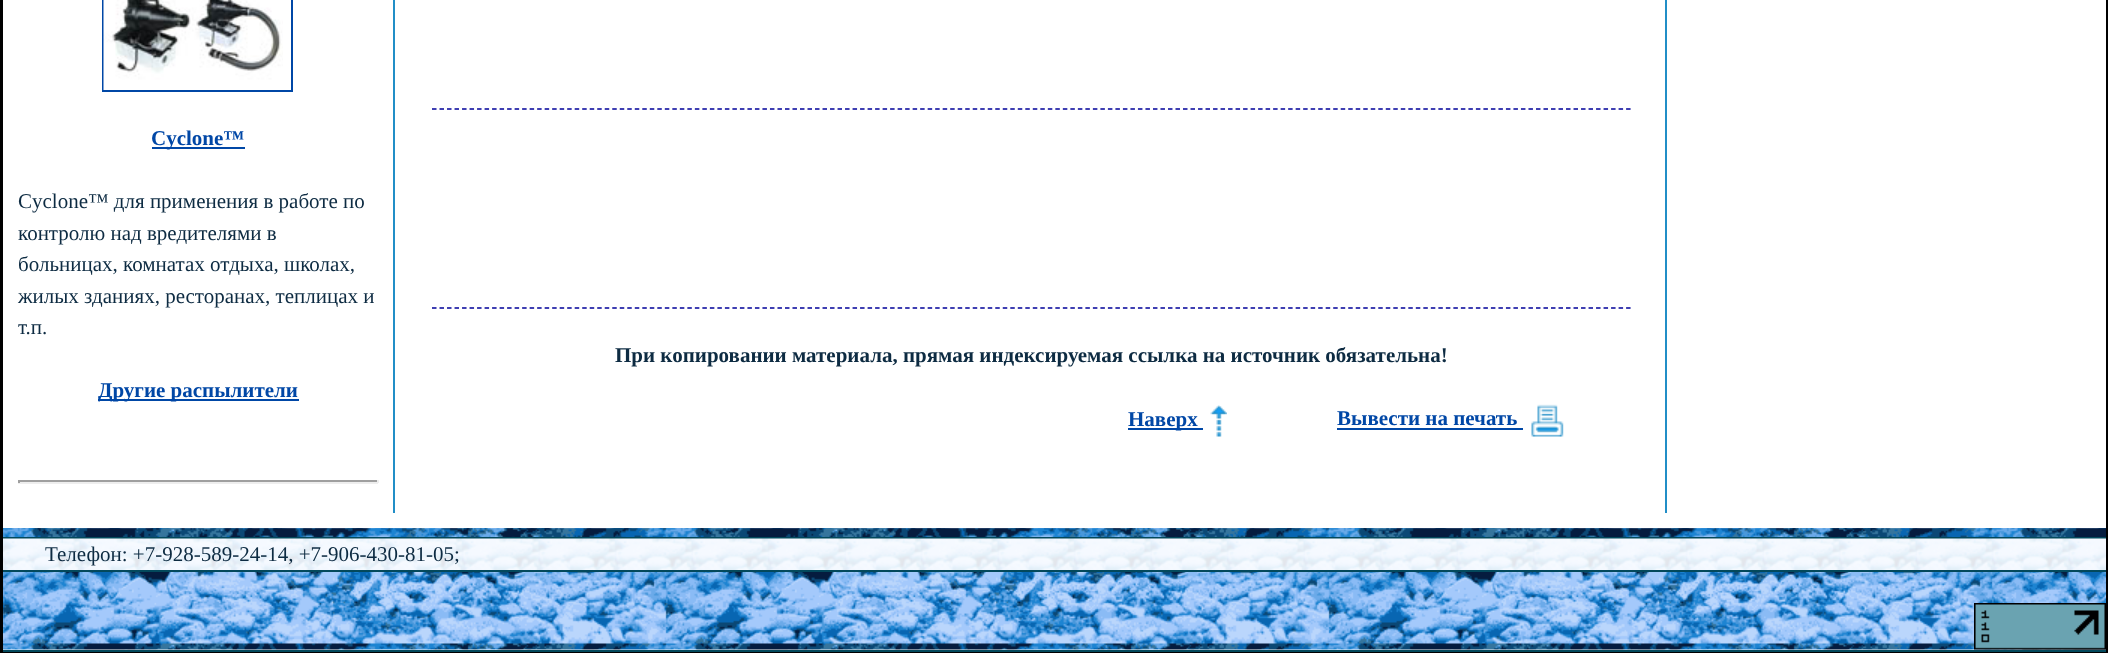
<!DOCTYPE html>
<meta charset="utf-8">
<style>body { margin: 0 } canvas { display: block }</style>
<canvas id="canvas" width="2108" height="653"></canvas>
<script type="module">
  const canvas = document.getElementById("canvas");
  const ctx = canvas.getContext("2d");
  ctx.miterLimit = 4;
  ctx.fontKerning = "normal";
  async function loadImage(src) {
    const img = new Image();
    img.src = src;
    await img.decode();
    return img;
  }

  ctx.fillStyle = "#000000";
  ctx.fillRect(0, 0, 2108, 653);
  ctx.fillStyle = "#ffffff";
  ctx.fillRect(3, 0, 2103, 650);
  ctx.strokeStyle = "#0047a6";
  ctx.lineWidth = 2;
  ctx.strokeRect(103, -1, 189, 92);
  ctx.drawImage(await loadImage("img1.png"), 103, 0, 180, 90);
  ctx.fillStyle = "#0047a6";
  ctx.fillRect(152, 147, 93, 2);
  ctx.font = "bold 21px Liberation Serif";
  ctx.fillText("Cyclone™", 151, 145);
  ctx.font = "21px Liberation Serif";
  ctx.fillStyle = "#0d2b42";
  ctx.fillText("Cyclone™ для применения в работе по", 18, 208);
  ctx.fillText("контролю над вредителями в", 18, 240);
  ctx.fillText("больницах, комнатах отдыха, школах,", 18, 271);
  ctx.fillText("жилых зданиях, ресторанах, теплицах и", 18, 303);
  ctx.fillText("т.п.", 18, 334);
  ctx.fillStyle = "#0047a6";
  ctx.fillRect(98, 399, 201, 2);
  ctx.font = "bold 21px Liberation Serif";
  ctx.fillText("Другие распылители", 98, 397);
  ctx.fillStyle = "#9f9f9f";
  ctx.fillRect(18, 480, 360, 2);
  ctx.fillStyle = "#eeeeee";
  ctx.fillRect(377, 480, 2, 3);
  ctx.fillRect(18, 482, 360, 2);
  ctx.fillStyle = "#9f9f9f";
  ctx.fillRect(18, 480, 2, 3);
  ctx.fillStyle = "#218ec7";
  ctx.fillRect(393, 0, 2, 513);
  ctx.beginPath();
  ctx.moveTo(432, 109);
  ctx.lineTo(1632, 109);
  ctx.strokeStyle = "#000099";
  ctx.lineWidth = 1.5;
  ctx.setLineDash([4.5, 3.01]);
  ctx.stroke();
  ctx.beginPath();
  ctx.moveTo(432, 308);
  ctx.lineTo(1632, 308);
  ctx.stroke();
  ctx.fillStyle = "#0d2b42";
  ctx.fillText("При копировании материала, прямая индексируемая ссылка на источник обязательна!", 615, 362);
  ctx.fillStyle = "#0047a6";
  ctx.fillRect(1128, 428, 75, 2);
  ctx.fillText("Наверх", 1128, 426);
  ctx.drawImage(await loadImage("img2.png"), 1210, 405, 17, 32);
  ctx.fillText("Вывести на печать", 1337, 425);
  ctx.fillRect(1337, 428, 186, 2);
  ctx.drawImage(await loadImage("img3.png"), 1531, 404, 33, 33);
  ctx.fillStyle = "#218ec7";
  ctx.fillRect(1665, 0, 2, 513);
  ctx.drawImage(await loadImage("img4.png"), 3, 528, 2103, 122);
  ctx.fillStyle = "#03495c";
  ctx.fillRect(3, 537, 2103, 2);
  ctx.drawImage(await loadImage("img5.png"), 3, 538, 2103, 32);
  ctx.font = "21px Liberation Serif";
  ctx.fillStyle = "#0d2b42";
  ctx.fillText("Телефон: +7-928-589-24-14, +7-906-430-81-05;", 45, 561);
  ctx.fillStyle = "#03495c";
  ctx.fillRect(3, 570, 2103, 2);
  ctx.drawImage(await loadImage("img6.png"), 1974, 603, 132, 47);
  ctx.fillRect(3, 650, 2103, 2);
</script>
